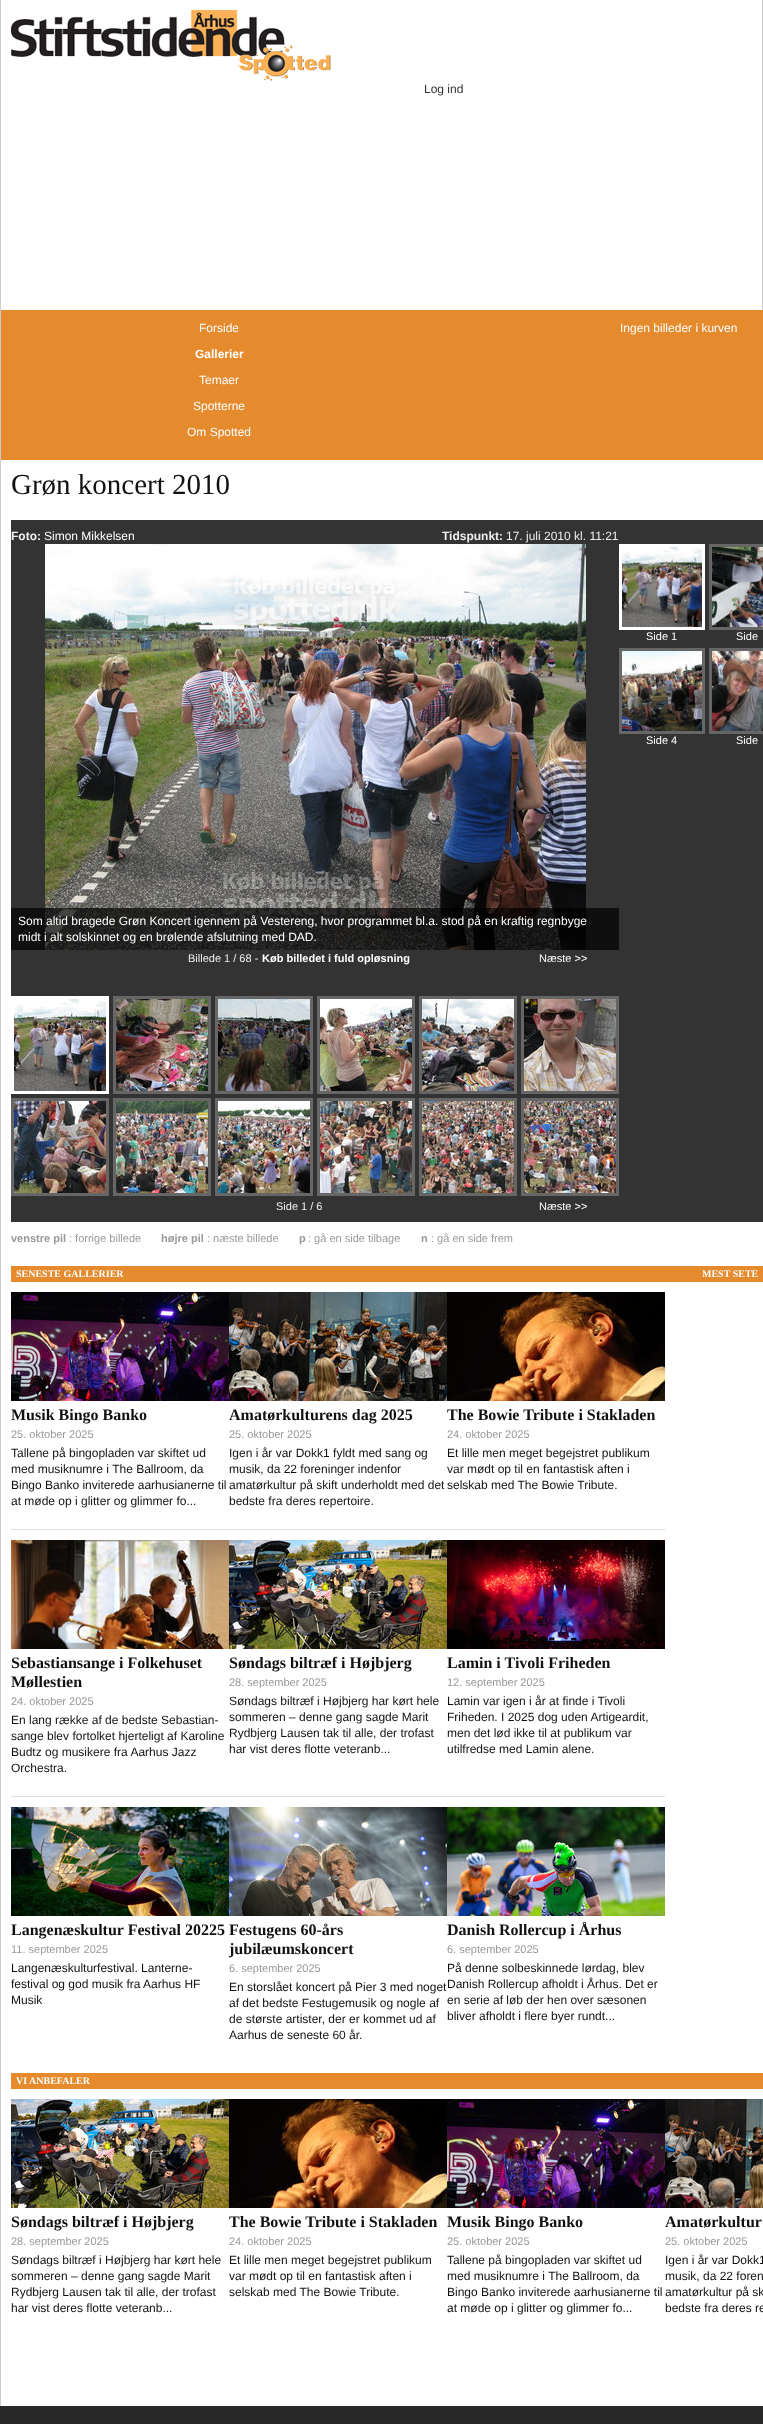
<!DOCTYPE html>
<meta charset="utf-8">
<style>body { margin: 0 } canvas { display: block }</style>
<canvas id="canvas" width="763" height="2424"></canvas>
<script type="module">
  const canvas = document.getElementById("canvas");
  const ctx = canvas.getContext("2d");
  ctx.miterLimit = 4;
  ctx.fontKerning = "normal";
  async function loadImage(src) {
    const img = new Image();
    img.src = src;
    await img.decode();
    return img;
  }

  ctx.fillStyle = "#292929";
  ctx.fillRect(0, 0, 763, 2424);
  ctx.fillStyle = "#ffffff";
  ctx.fillRect(1, 0, 761, 310);
  ctx.fillStyle = "#cccccc";
  ctx.fillRect(762, 0, 1, 310);
  ctx.fillRect(0, 0, 1, 2406);
  ctx.drawImage(await loadImage("img1.png"), 11, 10, 320, 71);
  ctx.font = "12px Liberation Sans";
  ctx.fillStyle = "#333333";
  ctx.fillText("Log ind", 424, 93);
  ctx.fillStyle = "#ffffff";
  ctx.fillRect(1, 460, 762, 1946);
  ctx.fillStyle = "#e58a2d";
  ctx.fillRect(1, 310, 762, 150);
  ctx.fillStyle = "#ffffff";
  ctx.fillText("Forside", 199, 332);
  ctx.font = "bold 12px Liberation Sans";
  ctx.fillText("Gallerier", 195, 358);
  ctx.font = "12px Liberation Sans";
  ctx.fillText("Temaer", 199, 384);
  ctx.fillText("Spotterne", 193, 410);
  ctx.fillText("Om Spotted", 187, 436);
  ctx.fillText("Ingen billeder i kurven", 620, 332);
  ctx.font = "29px Liberation Serif";
  ctx.fillStyle = "#111111";
  ctx.fillText("Grøn koncert 2010", 11, 494);
  ctx.fillStyle = "#333333";
  ctx.fillRect(11, 520, 752, 702);
  ctx.font = "bold 12px Liberation Sans";
  ctx.fillStyle = "#eeeeee";
  ctx.fillText("Foto:", 11, 540);
  ctx.font = "12px Liberation Sans";
  ctx.fillStyle = "#ffffff";
  ctx.fillText("Simon Mikkelsen", 44, 540);
  ctx.font = "bold 12px Liberation Sans";
  ctx.fillStyle = "#eeeeee";
  ctx.fillText("Tidspunkt:", 442, 540);
  ctx.font = "12px Liberation Sans";
  ctx.fillText("17. juli 2010 kl. 11:21", 506, 540);
  ctx.strokeStyle = "#ffffff";
  ctx.lineWidth = 3;
  ctx.strokeRect(620.5, 545.5, 83, 83);
  ctx.drawImage(await loadImage("img2.png"), 622, 547, 80, 80);
  ctx.font = "11px Liberation Sans";
  ctx.fillStyle = "#ffffff";
  ctx.fillText("Side 1", 646, 640);
  ctx.strokeStyle = "#666666";
  ctx.strokeRect(710.5, 545.5, 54, 83);
  ctx.drawImage(await loadImage("img3.png"), 712, 547, 51, 80);
  ctx.fillText("Side", 736, 640);
  ctx.strokeRect(620.5, 649.5, 83, 83);
  ctx.drawImage(await loadImage("img4.png"), 622, 651, 80, 80);
  ctx.fillText("Side 4", 646, 744);
  ctx.strokeRect(710.5, 649.5, 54, 83);
  ctx.drawImage(await loadImage("img5.png"), 712, 651, 51, 80);
  ctx.fillText("Side", 736, 744);
  ctx.drawImage(await loadImage("img6.png"), 45, 544, 541, 406);
  ctx.drawImage(await loadImage("img7.png"), 221, 578, 177, 347);
  ctx.fillStyle = "rgba(0, 0, 0, 0.7)";
  ctx.fillRect(11, 908, 608, 42);
  ctx.font = "12px Liberation Sans";
  ctx.fillStyle = "#ffffff";
  ctx.fillText("Som altid bragede Grøn Koncert igennem på Vestereng, hvor programmet bl.a. stod på en kraftig regnbyge", 18, 925);
  ctx.fillText("midt i alt solskinnet og en brølende afslutning med DAD.", 18, 941);
  ctx.font = "11px Liberation Sans";
  ctx.fillStyle = "#eeeeee";
  ctx.fillText("Billede 1 / 68 -", 188, 962);
  ctx.font = "bold 11px Liberation Sans";
  ctx.fillStyle = "#ffffff";
  ctx.fillText("Køb billedet i fuld opløsning", 262, 962);
  ctx.font = "11px Liberation Sans";
  ctx.fillText("Næste >>", 539, 962);
  ctx.strokeStyle = "#ffffff";
  ctx.strokeRect(12.5, 997.5, 95, 95);
  ctx.strokeStyle = "#666666";
  ctx.strokeRect(114.5, 997.5, 95, 95);
  ctx.strokeRect(216.5, 997.5, 95, 95);
  ctx.strokeRect(318.5, 997.5, 95, 95);
  ctx.strokeRect(420.5, 997.5, 95, 95);
  ctx.strokeRect(522.5, 997.5, 95, 95);
  ctx.drawImage(await loadImage("img8.png"), 14, 999, 92, 92);
  ctx.drawImage(await loadImage("img9.png"), 116, 999, 92, 92);
  ctx.drawImage(await loadImage("img10.png"), 218, 999, 92, 92);
  ctx.drawImage(await loadImage("img11.png"), 320, 999, 92, 92);
  ctx.drawImage(await loadImage("img12.png"), 422, 999, 92, 92);
  ctx.drawImage(await loadImage("img13.png"), 524, 999, 92, 92);
  ctx.strokeRect(12.5, 1099.5, 95, 95);
  ctx.strokeRect(114.5, 1099.5, 95, 95);
  ctx.strokeRect(216.5, 1099.5, 95, 95);
  ctx.strokeRect(318.5, 1099.5, 95, 95);
  ctx.strokeRect(420.5, 1099.5, 95, 95);
  ctx.strokeRect(522.5, 1099.5, 95, 95);
  ctx.drawImage(await loadImage("img14.png"), 14, 1101, 92, 92);
  ctx.drawImage(await loadImage("img15.png"), 116, 1101, 92, 92);
  ctx.drawImage(await loadImage("img16.png"), 218, 1101, 92, 92);
  ctx.drawImage(await loadImage("img17.png"), 320, 1101, 92, 92);
  ctx.drawImage(await loadImage("img18.png"), 422, 1101, 92, 92);
  ctx.drawImage(await loadImage("img19.png"), 524, 1101, 92, 92);
  ctx.fillStyle = "#eeeeee";
  ctx.fillText("Side 1 / 6", 276, 1210);
  ctx.fillStyle = "#ffffff";
  ctx.fillText("Næste >>", 539, 1210);
  ctx.font = "bold 11px Liberation Sans";
  ctx.fillStyle = "#999999";
  ctx.fillText("venstre pil", 11, 1242);
  ctx.font = "11px Liberation Sans";
  ctx.fillText(": forrige billede", 69, 1242);
  ctx.font = "bold 11px Liberation Sans";
  ctx.fillText("højre pil", 161, 1242);
  ctx.font = "11px Liberation Sans";
  ctx.fillText(": næste billede", 207, 1242);
  ctx.font = "bold 11px Liberation Sans";
  ctx.fillText("p", 299, 1242);
  ctx.font = "11px Liberation Sans";
  ctx.fillText(": gå en side tilbage", 308, 1242);
  ctx.font = "bold 11px Liberation Sans";
  ctx.fillText("n", 421, 1242);
  ctx.font = "11px Liberation Sans";
  ctx.fillText(": gå en side frem", 431, 1242);
  ctx.fillStyle = "#e58a2d";
  ctx.fillRect(11, 1266, 752, 16);
  ctx.font = "bold 10px Liberation Serif";
  ctx.fillStyle = "#ffffff";
  ctx.fillText("SENESTE GALLERIER", 16, 1277);
  ctx.drawImage(await loadImage("img20.png"), 11, 1292, 218, 109);
  ctx.font = "bold 16px Liberation Serif";
  ctx.fillStyle = "#111111";
  ctx.fillText("Musik Bingo Banko", 11, 1420);
  ctx.font = "11px Liberation Sans";
  ctx.fillStyle = "#999999";
  ctx.fillText("25. oktober 2025", 11, 1438);
  ctx.font = "12px Liberation Sans";
  ctx.fillStyle = "#111111";
  ctx.fillText("Tallene på bingopladen var skiftet ud", 11, 1457);
  ctx.fillText("med musiknumre i The Ballroom, da", 11, 1473);
  ctx.fillText("Bingo Banko inviterede aarhusianerne til", 11, 1489);
  ctx.fillText("at møde op i glitter og glimmer fo...", 11, 1505);
  ctx.drawImage(await loadImage("img21.png"), 229, 1292, 218, 109);
  ctx.font = "bold 16px Liberation Serif";
  ctx.fillText("Amatørkulturens dag 2025", 229, 1420);
  ctx.font = "11px Liberation Sans";
  ctx.fillStyle = "#999999";
  ctx.fillText("25. oktober 2025", 229, 1438);
  ctx.font = "12px Liberation Sans";
  ctx.fillStyle = "#111111";
  ctx.fillText("Igen i år var Dokk1 fyldt med sang og", 229, 1457);
  ctx.fillText("musik, da 22 foreninger indenfor", 229, 1473);
  ctx.fillText("amatørkultur på skift underholdt med det", 229, 1489);
  ctx.fillText("bedste fra deres repertoire.", 229, 1505);
  ctx.drawImage(await loadImage("img22.png"), 447, 1292, 218, 109);
  ctx.font = "bold 16px Liberation Serif";
  ctx.fillText("The Bowie Tribute i Stakladen", 447, 1420);
  ctx.font = "11px Liberation Sans";
  ctx.fillStyle = "#999999";
  ctx.fillText("24. oktober 2025", 447, 1438);
  ctx.font = "12px Liberation Sans";
  ctx.fillStyle = "#111111";
  ctx.fillText("Et lille men meget begejstret publikum", 447, 1457);
  ctx.fillText("var mødt op til en fantastisk aften i", 447, 1473);
  ctx.fillText("selskab med The Bowie Tribute.", 447, 1489);
  ctx.fillStyle = "#dddddd";
  ctx.fillRect(11, 1529, 654, 1);
  ctx.drawImage(await loadImage("img23.png"), 11, 1540, 218, 109);
  ctx.font = "bold 16px Liberation Serif";
  ctx.fillStyle = "#111111";
  ctx.fillText("Sebastiansange i Folkehuset", 11, 1668);
  ctx.fillText("Møllestien", 11, 1687);
  ctx.font = "11px Liberation Sans";
  ctx.fillStyle = "#999999";
  ctx.fillText("24. oktober 2025", 11, 1705);
  ctx.font = "12px Liberation Sans";
  ctx.fillStyle = "#111111";
  ctx.fillText("En lang række af de bedste Sebastian-", 11, 1724);
  ctx.fillText("sange blev fortolket hjerteligt af Karoline", 11, 1740);
  ctx.fillText("Budtz og musikere fra Aarhus Jazz", 11, 1756);
  ctx.fillText("Orchestra.", 11, 1772);
  ctx.drawImage(await loadImage("img24.png"), 229, 1540, 218, 109);
  ctx.font = "bold 16px Liberation Serif";
  ctx.fillText("Søndags biltræf i Højbjerg", 229, 1668);
  ctx.font = "11px Liberation Sans";
  ctx.fillStyle = "#999999";
  ctx.fillText("28. september 2025", 229, 1686);
  ctx.font = "12px Liberation Sans";
  ctx.fillStyle = "#111111";
  ctx.fillText("Søndags biltræf i Højbjerg har kørt hele", 229, 1705);
  ctx.fillText("sommeren – denne gang sagde Marit", 229, 1721);
  ctx.fillText("Rydbjerg Lausen tak til alle, der trofast", 229, 1737);
  ctx.fillText("har vist deres flotte veteranb...", 229, 1753);
  ctx.drawImage(await loadImage("img25.png"), 447, 1540, 218, 109);
  ctx.font = "bold 16px Liberation Serif";
  ctx.fillText("Lamin i Tivoli Friheden", 447, 1668);
  ctx.font = "11px Liberation Sans";
  ctx.fillStyle = "#999999";
  ctx.fillText("12. september 2025", 447, 1686);
  ctx.font = "12px Liberation Sans";
  ctx.fillStyle = "#111111";
  ctx.fillText("Lamin var igen i år at finde i Tivoli", 447, 1705);
  ctx.fillText("Friheden. I 2025 dog uden Artigeardit,", 447, 1721);
  ctx.fillText("men det lød ikke til at publikum var", 447, 1737);
  ctx.fillText("utilfredse med Lamin alene.", 447, 1753);
  ctx.fillStyle = "#dddddd";
  ctx.fillRect(11, 1796, 654, 1);
  ctx.drawImage(await loadImage("img26.png"), 11, 1807, 218, 109);
  ctx.font = "bold 16px Liberation Serif";
  ctx.fillStyle = "#111111";
  ctx.fillText("Langenæskultur Festival 20225 Festugens 60-års", 11, 1935);
  ctx.font = "11px Liberation Sans";
  ctx.fillStyle = "#999999";
  ctx.fillText("11. september 2025", 11, 1953);
  ctx.font = "12px Liberation Sans";
  ctx.fillStyle = "#111111";
  ctx.fillText("Langenæskulturfestival. Lanterne-", 11, 1972);
  ctx.fillText("festival og god musik fra Aarhus HF", 11, 1988);
  ctx.fillText("Musik", 11, 2004);
  ctx.drawImage(await loadImage("img27.png"), 447, 1807, 218, 109);
  ctx.font = "bold 16px Liberation Serif";
  ctx.fillText("Danish Rollercup i Århus", 447, 1935);
  ctx.font = "11px Liberation Sans";
  ctx.fillStyle = "#999999";
  ctx.fillText("6. september 2025", 447, 1953);
  ctx.font = "12px Liberation Sans";
  ctx.fillStyle = "#111111";
  ctx.fillText("På denne solbeskinnede lørdag, blev", 447, 1972);
  ctx.fillText("Danish Rollercup afholdt i Århus. Det er", 447, 1988);
  ctx.fillText("en serie af løb der hen over sæsonen", 447, 2004);
  ctx.fillText("bliver afholdt i flere byer rundt...", 447, 2020);
  ctx.drawImage(await loadImage("img28.png"), 229, 1807, 218, 109);
  ctx.font = "bold 16px Liberation Serif";
  ctx.fillText("jubilæumskoncert", 229, 1954);
  ctx.font = "11px Liberation Sans";
  ctx.fillStyle = "#999999";
  ctx.fillText("6. september 2025", 229, 1972);
  ctx.font = "12px Liberation Sans";
  ctx.fillStyle = "#111111";
  ctx.fillText("En storslået koncert på Pier 3 med noget", 229, 1991);
  ctx.fillText("af det bedste Festugemusik og nogle af", 229, 2007);
  ctx.fillText("de største artister, der er kommet ud af", 229, 2023);
  ctx.fillText("Aarhus de seneste 60 år.", 229, 2039);
  ctx.font = "bold 10px Liberation Serif";
  ctx.fillStyle = "#ffffff";
  ctx.fillText("MEST SETE", 702, 1277);
  ctx.fillStyle = "#e58a2d";
  ctx.fillRect(11, 2073, 752, 16);
  ctx.fillStyle = "#ffffff";
  ctx.fillText("VI ANBEFALER", 16, 2084);
  ctx.drawImage(await loadImage("img24.png"), 11, 2099, 218, 109);
  ctx.font = "bold 16px Liberation Serif";
  ctx.fillStyle = "#111111";
  ctx.fillText("Søndags biltræf i Højbjerg", 11, 2227);
  ctx.font = "11px Liberation Sans";
  ctx.fillStyle = "#999999";
  ctx.fillText("28. september 2025", 11, 2245);
  ctx.font = "12px Liberation Sans";
  ctx.fillStyle = "#111111";
  ctx.fillText("Søndags biltræf i Højbjerg har kørt hele", 11, 2264);
  ctx.fillText("sommeren – denne gang sagde Marit", 11, 2280);
  ctx.fillText("Rydbjerg Lausen tak til alle, der trofast", 11, 2296);
  ctx.fillText("har vist deres flotte veteranb...", 11, 2312);
  ctx.drawImage(await loadImage("img22.png"), 229, 2099, 218, 109);
  ctx.font = "bold 16px Liberation Serif";
  ctx.fillText("The Bowie Tribute i Stakladen", 229, 2227);
  ctx.font = "11px Liberation Sans";
  ctx.fillStyle = "#999999";
  ctx.fillText("24. oktober 2025", 229, 2245);
  ctx.font = "12px Liberation Sans";
  ctx.fillStyle = "#111111";
  ctx.fillText("Et lille men meget begejstret publikum", 229, 2264);
  ctx.fillText("var mødt op til en fantastisk aften i", 229, 2280);
  ctx.fillText("selskab med The Bowie Tribute.", 229, 2296);
  ctx.drawImage(await loadImage("img20.png"), 447, 2099, 218, 109);
  ctx.font = "bold 16px Liberation Serif";
  ctx.fillText("Musik Bingo Banko", 447, 2227);
  ctx.font = "11px Liberation Sans";
  ctx.fillStyle = "#999999";
  ctx.fillText("25. oktober 2025", 447, 2245);
  ctx.font = "12px Liberation Sans";
  ctx.fillStyle = "#111111";
  ctx.fillText("Tallene på bingopladen var skiftet ud", 447, 2264);
  ctx.fillText("med musiknumre i The Ballroom, da", 447, 2280);
  ctx.fillText("Bingo Banko inviterede aarhusianerne til", 447, 2296);
  ctx.fillText("at møde op i glitter og glimmer fo...", 447, 2312);
  ctx.drawImage(await loadImage("img29.png"), 665, 2099, 98, 109);
  ctx.font = "bold 16px Liberation Serif";
  ctx.fillText("Amatørkultur", 665, 2227);
  ctx.font = "11px Liberation Sans";
  ctx.fillStyle = "#999999";
  ctx.fillText("25. oktober 2025", 665, 2245);
  ctx.font = "12px Liberation Sans";
  ctx.fillStyle = "#111111";
  ctx.fillText("Igen i år var Dokk1", 665, 2264);
  ctx.fillText("musik, da 22 foren", 665, 2280);
  ctx.fillText("amatørkultur på sk", 665, 2296);
  ctx.fillText("bedste fra deres re", 665, 2312);
</script>
